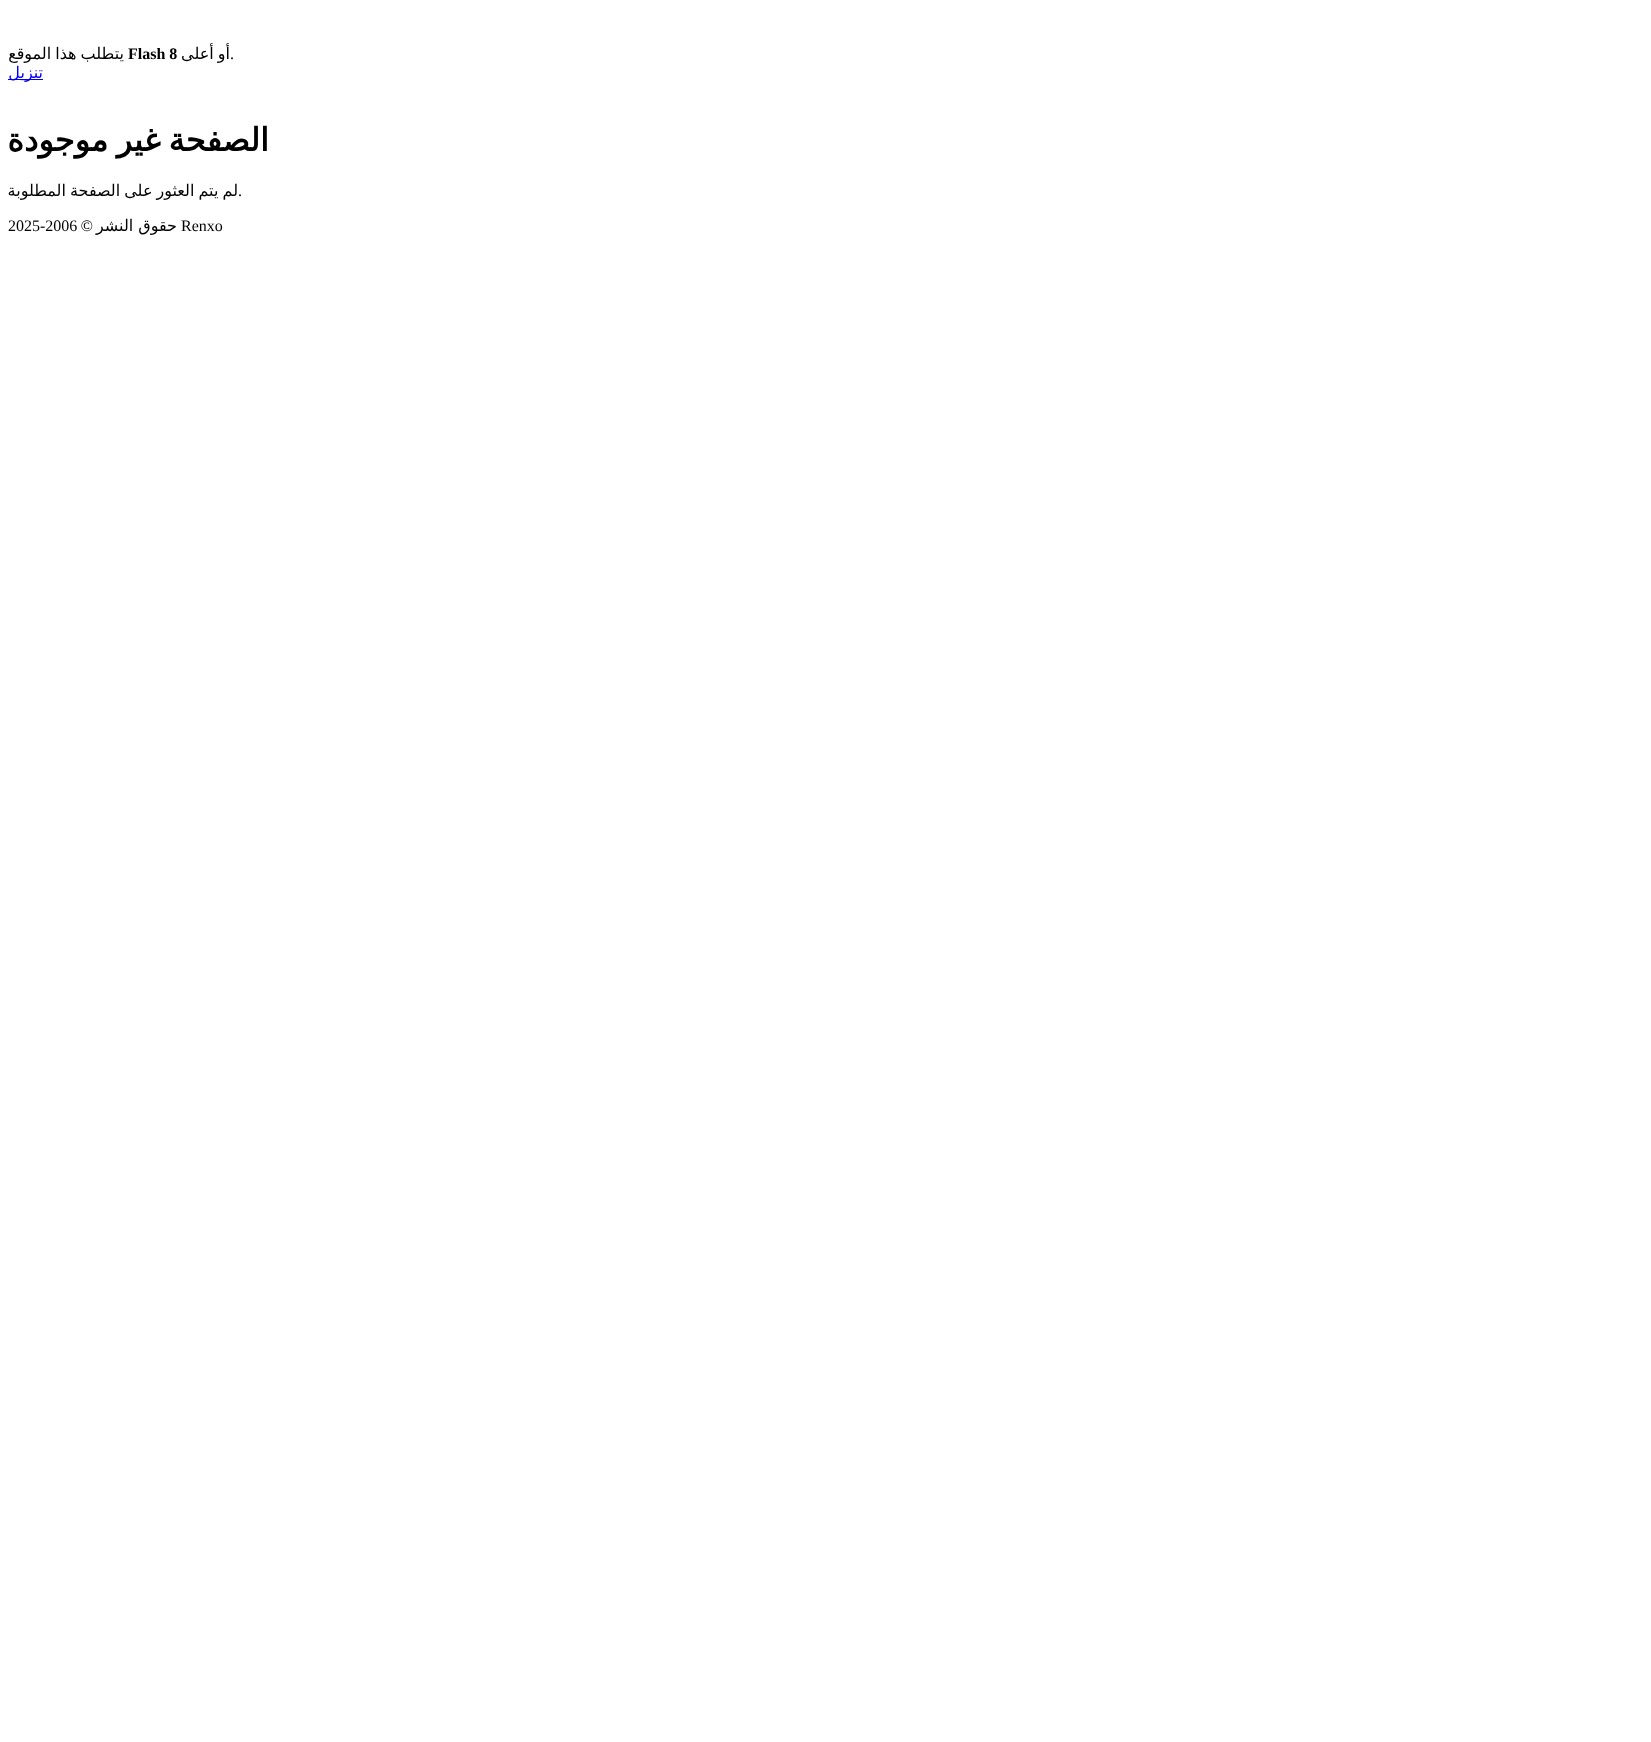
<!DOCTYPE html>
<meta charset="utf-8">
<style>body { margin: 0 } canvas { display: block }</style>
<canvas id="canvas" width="1651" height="1742"></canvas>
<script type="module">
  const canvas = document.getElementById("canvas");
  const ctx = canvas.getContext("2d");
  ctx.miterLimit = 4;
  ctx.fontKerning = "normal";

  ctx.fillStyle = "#ffffff";
  ctx.fillRect(0, 0, 1651, 1742);
  ctx.font = "16px Liberation Serif";
  ctx.fillStyle = "#000000";
  ctx.fillText(".", 230, 59);
  ctx.wordSpacing = "-1px";
  ctx.direction = "rtl";
  ctx.font = "16px DejaVu Sans";
  ctx.fillText("أو أعلى", 230, 59);
  ctx.wordSpacing = "0px";
  ctx.direction = "ltr";
  ctx.font = "bold 16px Liberation Serif";
  ctx.fillText("Flash 8", 128, 59);
  ctx.wordSpacing = "-1px";
  ctx.direction = "rtl";
  ctx.font = "16px DejaVu Sans";
  ctx.fillText("يتطلب هذا الموقع", 124, 59);
  ctx.fillStyle = "#0000ee";
  ctx.fillRect(8, 79, 35, 1);
  ctx.wordSpacing = "0px";
  ctx.fillText("تنزيل", 43, 78);
  ctx.wordSpacing = "-2px";
  ctx.font = "bold 32px DejaVu Sans";
  ctx.fillStyle = "#000000";
  ctx.fillText("الصفحة غير موجودة", 269, 151);
  ctx.wordSpacing = "0px";
  ctx.direction = "ltr";
  ctx.font = "16px Liberation Serif";
  ctx.fillText(".", 238, 196);
  ctx.wordSpacing = "-1px";
  ctx.direction = "rtl";
  ctx.font = "16px DejaVu Sans";
  ctx.fillText("لم يتم العثور على الصفحة المطلوبة", 238, 196);
  ctx.wordSpacing = "0px";
  ctx.direction = "ltr";
  ctx.font = "16px Liberation Serif";
  ctx.fillText("Renxo", 181, 231);
  ctx.direction = "rtl";
  ctx.font = "16px DejaVu Sans";
  ctx.fillText("حقوق النشر", 177, 231);
  ctx.font = "16px Liberation Serif";
  ctx.fillText("©", 93, 231);
  ctx.direction = "ltr";
  ctx.fillText("2025-2006", 8, 231);
</script>
